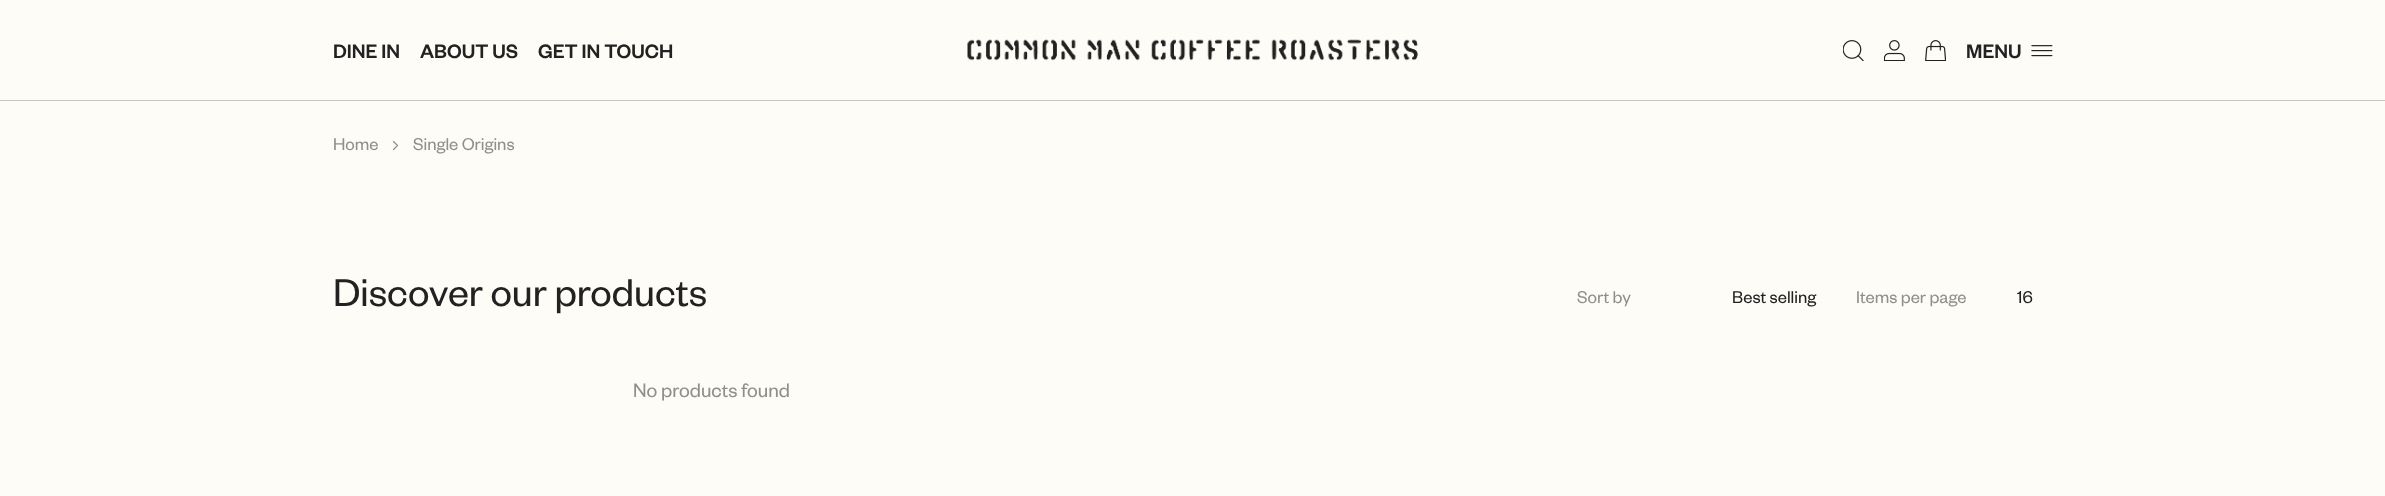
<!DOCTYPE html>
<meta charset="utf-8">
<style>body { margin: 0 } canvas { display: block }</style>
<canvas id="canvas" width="2385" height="496"></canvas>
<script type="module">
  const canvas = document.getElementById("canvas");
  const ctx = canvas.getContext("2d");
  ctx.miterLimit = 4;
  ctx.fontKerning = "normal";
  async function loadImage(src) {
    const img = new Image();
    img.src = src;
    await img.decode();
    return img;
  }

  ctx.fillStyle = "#fefcf6";
  ctx.fillRect(0, 0, 2385, 496);
  ctx.fillStyle = "#c7c6c1";
  ctx.fillRect(0, 100, 2385, 1);
  ctx.font = "500 21.25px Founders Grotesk";
  ctx.fillStyle = "#222222";
  ctx.fillText("DINE IN", 333, 58);
  ctx.fillText("ABOUT US", 420, 58);
  ctx.fillText("GET IN TOUCH", 538, 58);
  ctx.drawImage(await loadImage("img1.png"), 967, 39, 451, 22);
  ctx.drawImage(await loadImage("img2.png"), 1843, 40, 21, 21);
  ctx.drawImage(await loadImage("img3.png"), 1884, 40, 21, 21);
  ctx.drawImage(await loadImage("img4.png"), 1925, 40, 21, 21);
  ctx.fillText("MENU", 1966, 58);
  ctx.drawImage(await loadImage("img5.png"), 2031, 45, 22, 12);
  ctx.font = "18.75px Founders Grotesk";
  ctx.fillStyle = "#908f8c";
  ctx.fillText("Home", 333, 150);
  ctx.beginPath();
  ctx.moveTo(393.5, 141.5);
  ctx.lineTo(397.5, 145.5);
  ctx.lineTo(393.5, 149.5);
  ctx.strokeStyle = "#908f8c";
  ctx.lineWidth = 1.2;
  ctx.lineCap = "round";
  ctx.lineJoin = "round";
  ctx.stroke();
  ctx.fillText("Single Origins", 413, 150);
  ctx.font = "42.5px Founders Grotesk";
  ctx.fillStyle = "#222222";
  ctx.fillText("Discover our products", 333, 306);
  ctx.font = "18.75px Founders Grotesk";
  ctx.fillStyle = "#908f8c";
  ctx.fillText("Sort by", 1577, 303);
  ctx.fillStyle = "#222222";
  ctx.fillText("Best selling", 1732, 303);
  ctx.fillStyle = "#908f8c";
  ctx.fillText("Items per page", 1856, 303);
  ctx.fillStyle = "#222222";
  ctx.fillText("16", 2017, 303);
  ctx.font = "21.25px Founders Grotesk";
  ctx.fillStyle = "#908f8c";
  ctx.fillText("No products found", 633, 397);
</script>
